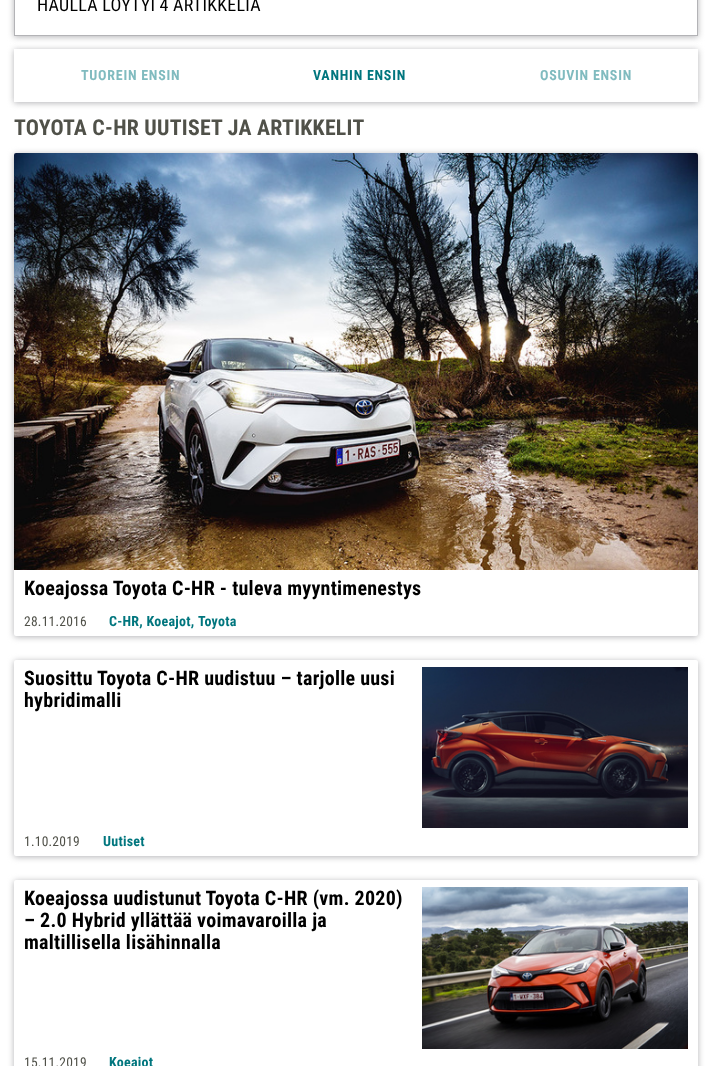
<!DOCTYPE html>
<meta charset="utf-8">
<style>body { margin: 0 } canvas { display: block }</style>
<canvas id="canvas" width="712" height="1066"></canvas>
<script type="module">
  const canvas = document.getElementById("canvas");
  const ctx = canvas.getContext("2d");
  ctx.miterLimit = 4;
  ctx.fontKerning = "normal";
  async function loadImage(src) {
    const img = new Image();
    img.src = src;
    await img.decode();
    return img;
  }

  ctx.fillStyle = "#ffffff";
  ctx.fillRect(0, 0, 712, 1066);
  ctx.save();
  ctx.beginPath();
  ctx.moveTo(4, 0);
  ctx.lineTo(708, 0);
  ctx.lineTo(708, 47);
  ctx.lineTo(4, 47);
  ctx.closePath();
  ctx.moveTo(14, -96);
  ctx.lineTo(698, -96);
  ctx.lineTo(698, 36);
  ctx.lineTo(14, 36);
  ctx.closePath();
  ctx.clip("evenodd");
  ctx.fillStyle = "#b3b3b6";
  ctx.filter = "blur(3px)";
  ctx.beginPath();
  ctx.rect(14, -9, 684, 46);
  ctx.fill();
  ctx.filter = "none";
  ctx.restore();
  ctx.strokeStyle = "#b3b3b6";
  ctx.strokeRect(14.5, -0.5, 683, 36);
  ctx.letterSpacing = "0.25px";
  ctx.font = "18px Roboto Condensed";
  ctx.fillStyle = "#000000";
  ctx.fillText("HAULLA LÖYTYI 4 ARTIKKELIA", 37, 11);
  ctx.save();
  ctx.beginPath();
  ctx.moveTo(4, 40);
  ctx.lineTo(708, 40);
  ctx.lineTo(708, 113);
  ctx.lineTo(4, 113);
  ctx.closePath();
  ctx.moveTo(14, 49);
  ctx.lineTo(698, 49);
  ctx.lineTo(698, 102);
  ctx.lineTo(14, 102);
  ctx.closePath();
  ctx.clip("evenodd");
  ctx.fillStyle = "#b3b3b6";
  ctx.filter = "blur(3px)";
  ctx.beginPath();
  ctx.rect(14, 50, 684, 53);
  ctx.fill();
  ctx.filter = "none";
  ctx.restore();
  ctx.letterSpacing = "0.75px";
  ctx.font = "bold 14px Roboto Condensed";
  ctx.fillStyle = "#80bbbf";
  ctx.fillText("TUOREIN ENSIN", 81, 80);
  ctx.fillStyle = "#01767e";
  ctx.fillText("VANHIN ENSIN", 313, 80);
  ctx.fillStyle = "#80bbbf";
  ctx.fillText("OSUVIN ENSIN", 540, 80);
  ctx.letterSpacing = "0.25px";
  ctx.font = "bold 21.8px Roboto Condensed";
  ctx.fillStyle = "#505149";
  ctx.fillText("TOYOTA C-HR UUTISET JA ARTIKKELIT", 14, 135);
  ctx.fillStyle = "#b3b3b6";
  ctx.filter = "blur(3px)";
  ctx.beginPath();
  ctx.roundRect(14, 154, 684, 483, 2);
  ctx.fill();
  ctx.filter = "none";
  ctx.fillStyle = "#ffffff";
  ctx.beginPath();
  ctx.roundRect(14, 153, 684, 483, 2);
  ctx.fill();
  ctx.drawImage(await loadImage("img1.png"), 14, 153, 684, 417);
  ctx.font = "bold 20px Roboto Condensed";
  ctx.fillStyle = "#000000";
  ctx.fillText("Koeajossa Toyota C-HR - tuleva myyntimenestys", 24, 595);
  ctx.font = "13.5px Roboto Condensed";
  ctx.fillStyle = "#505149";
  ctx.fillText("28.11.2016", 24, 626);
  ctx.font = "bold 14px Roboto Condensed";
  ctx.fillStyle = "#01767e";
  ctx.fillText("C-HR, Koeajot,", 109, 626);
  ctx.fillText("Toyota", 198, 626);
  ctx.fillStyle = "#b3b3b6";
  ctx.filter = "blur(3px)";
  ctx.beginPath();
  ctx.roundRect(14, 661, 684, 196, 2);
  ctx.fill();
  ctx.filter = "none";
  ctx.fillStyle = "#ffffff";
  ctx.beginPath();
  ctx.roundRect(14, 660, 684, 196, 2);
  ctx.fill();
  ctx.font = "bold 20px Roboto Condensed";
  ctx.fillStyle = "#000000";
  ctx.fillText("Suosittu Toyota C-HR uudistuu – tarjolle uusi", 24, 685);
  ctx.fillText("hybridimalli", 24, 707);
  ctx.drawImage(await loadImage("img2.png"), 422, 667, 266, 161);
  ctx.font = "13.5px Roboto Condensed";
  ctx.fillStyle = "#505149";
  ctx.fillText("1.10.2019", 24, 846);
  ctx.font = "bold 14px Roboto Condensed";
  ctx.fillStyle = "#01767e";
  ctx.fillText("Uutiset", 103, 846);
  ctx.fillStyle = "#b3b3b6";
  ctx.filter = "blur(3px)";
  ctx.beginPath();
  ctx.roundRect(14, 881, 684, 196, 2);
  ctx.fill();
  ctx.filter = "none";
  ctx.fillStyle = "#ffffff";
  ctx.beginPath();
  ctx.roundRect(14, 880, 684, 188, 2);
  ctx.fill();
  ctx.font = "bold 20px Roboto Condensed";
  ctx.fillStyle = "#000000";
  ctx.fillText("Koeajossa uudistunut Toyota C-HR (vm. 2020)", 24, 905);
  ctx.fillText("– 2.0 Hybrid yllättää voimavaroilla ja", 24, 927);
  ctx.fillText("maltillisella lisähinnalla", 24, 949);
  ctx.drawImage(await loadImage("img3.png"), 422, 887, 266, 162);
  ctx.font = "13.5px Roboto Condensed";
  ctx.fillStyle = "#505149";
  ctx.fillText("15.11.2019", 24, 1067);
  ctx.font = "bold 14px Roboto Condensed";
  ctx.fillStyle = "#01767e";
  ctx.fillText("Koeajot", 109, 1067);
</script>
